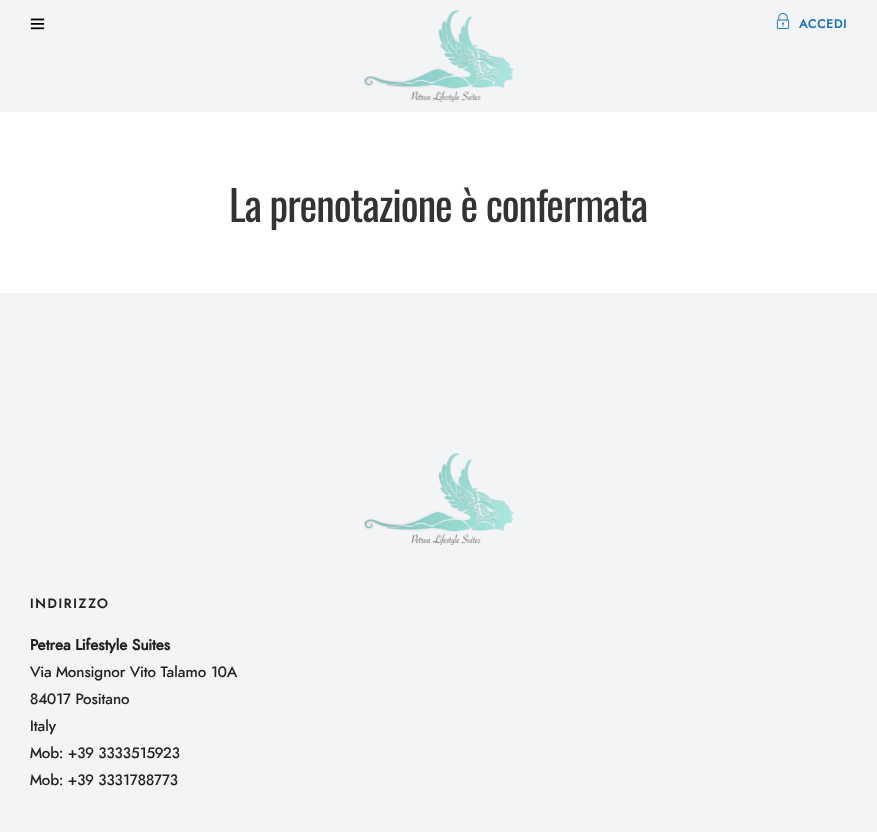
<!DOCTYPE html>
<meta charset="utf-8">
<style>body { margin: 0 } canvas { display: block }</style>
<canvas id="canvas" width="877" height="832"></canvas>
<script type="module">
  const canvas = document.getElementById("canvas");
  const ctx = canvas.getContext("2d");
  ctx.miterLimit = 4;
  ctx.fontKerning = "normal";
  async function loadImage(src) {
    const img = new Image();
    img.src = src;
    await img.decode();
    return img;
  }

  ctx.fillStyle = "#f3f4f6";
  ctx.fillRect(0, 0, 877, 832);
  ctx.drawImage(await loadImage("img1.png"), 30, 18, 15, 12);
  ctx.drawImage(await loadImage("img2.png"), 364, 10, 150, 92);
  ctx.drawImage(await loadImage("img3.png"), 776, 13, 14, 16);
  ctx.letterSpacing = "1px";
  ctx.font = "bold 12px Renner";
  ctx.fillStyle = "#1e73be";
  ctx.fillText("ACCEDI", 799, 28);
  ctx.fillStyle = "#ffffff";
  ctx.fillRect(0, 112, 877, 181);
  ctx.letterSpacing = "-1px";
  ctx.font = "42px Oswald";
  ctx.fillStyle = "#333333";
  ctx.fillText("La prenotazione è confermata", 229, 222);
  ctx.drawImage(await loadImage("img4.png"), 364, 453, 150, 92);
  ctx.letterSpacing = "2px";
  ctx.font = "bold 13px Renner";
  ctx.fillStyle = "#222222";
  ctx.fillText("INDIRIZZO", 30, 608);
  ctx.letterSpacing = "0px";
  ctx.font = "bold 15px Renner";
  ctx.fillText("Petrea Lifestyle Suites", 30, 650);
  ctx.font = "500 15px Renner";
  ctx.fillText("Via Monsignor Vito Talamo 10A", 30, 677);
  ctx.fillText("84017 Positano", 30, 704);
  ctx.fillText("Italy", 30, 731);
  ctx.fillText("Mob: +39 3333515923", 30, 758);
  ctx.fillText("Mob: +39 3331788773", 30, 785);
</script>
